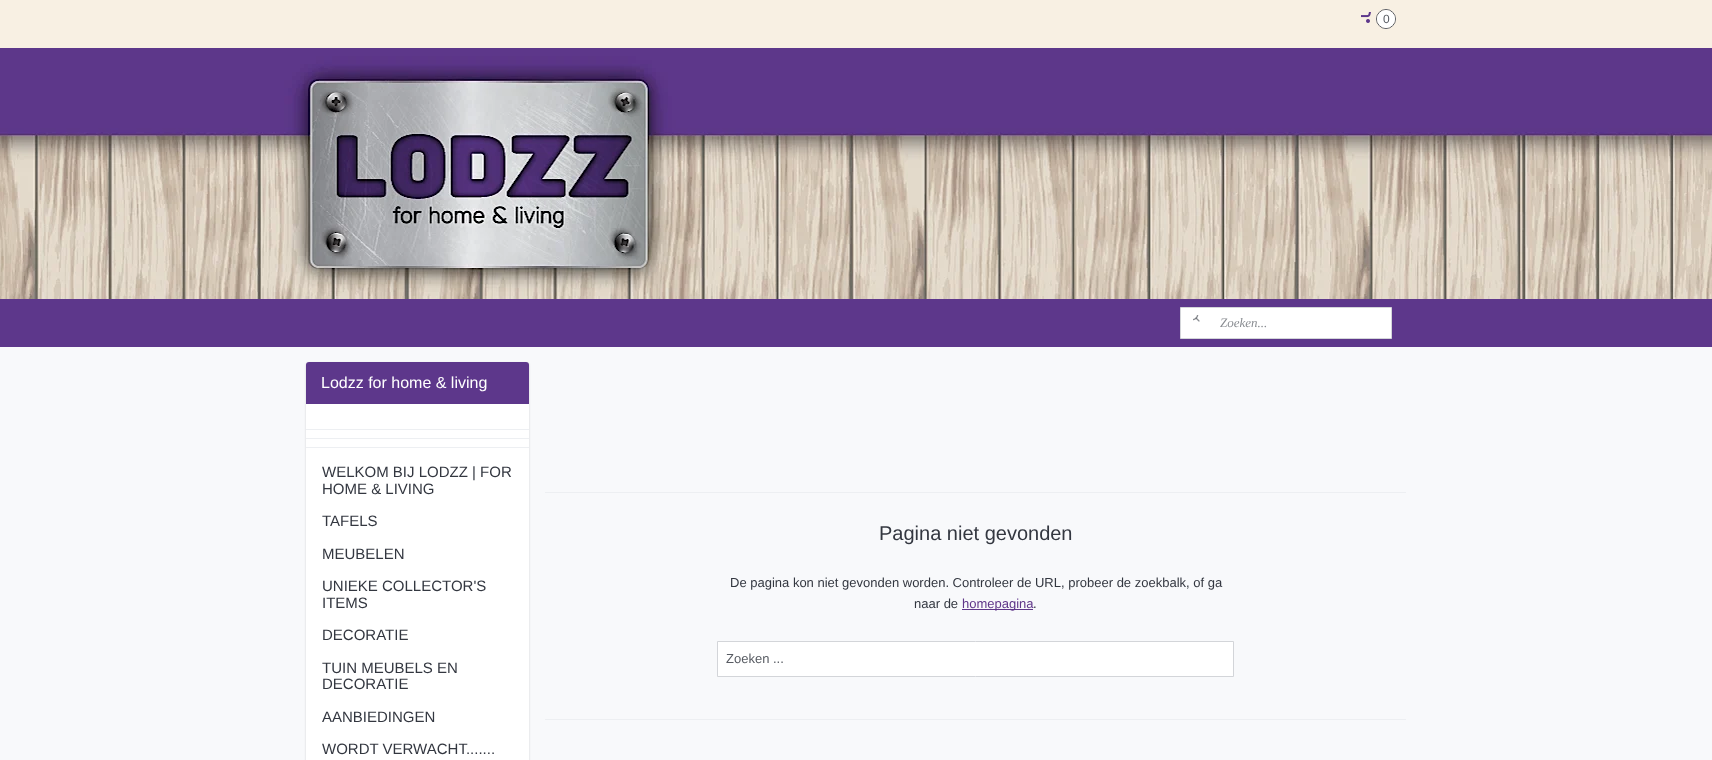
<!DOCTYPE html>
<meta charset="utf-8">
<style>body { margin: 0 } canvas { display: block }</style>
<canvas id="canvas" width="1712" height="760"></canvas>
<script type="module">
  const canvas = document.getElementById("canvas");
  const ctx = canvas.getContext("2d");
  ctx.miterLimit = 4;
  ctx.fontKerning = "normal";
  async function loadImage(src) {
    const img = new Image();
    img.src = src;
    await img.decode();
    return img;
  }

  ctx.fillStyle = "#f8f9fb";
  ctx.fillRect(0, 0, 1712, 760);
  ctx.fillStyle = "#f8f0e3";
  ctx.fillRect(0, 0, 1712, 48);
  ctx.drawImage(await loadImage("img1.png"), 1361, 12, 10, 11);
  ctx.beginPath();
  ctx.arc(1386, 19, 9.5, 0, Math.PI * 2);
  ctx.strokeStyle = "#575b62";
  ctx.stroke();
  ctx.fillStyle = "#ffffff";
  ctx.beginPath();
  ctx.arc(1386, 19, 9, 0, Math.PI * 2);
  ctx.fill();
  ctx.font = "12px Liberation Sans";
  ctx.fillStyle = "#575b62";
  ctx.fillText("0", 1383, 23);
  ctx.drawImage(await loadImage("img2.png"), 0, 48, 1712, 251);
  ctx.fillStyle = "#5d378b";
  ctx.fillRect(0, 299, 1712, 48);
  ctx.fillStyle = "#ffffff";
  ctx.beginPath();
  ctx.rect(1180.5, 307.5, 211, 31);
  ctx.fill();
  ctx.strokeStyle = "#d3d5d9";
  ctx.stroke();
  ctx.drawImage(await loadImage("img3.png"), 1193, 315, 7, 7);
  ctx.font = "italic 13px Liberation Serif";
  ctx.fillStyle = "#898c91";
  ctx.fillText("Zoeken...", 1220, 327);
  ctx.fillStyle = "rgba(0, 0, 0, 0.15)";
  ctx.filter = "blur(1px)";
  ctx.beginPath();
  ctx.roundRect(306, 363, 223, 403, 3);
  ctx.fill();
  ctx.filter = "none";
  ctx.fillStyle = "#ffffff";
  ctx.beginPath();
  ctx.roundRect(306, 362, 223, 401, 3);
  ctx.fill();
  ctx.fillStyle = "#5d378b";
  ctx.beginPath();
  ctx.roundRect(306, 362, 223, 42, [3, 3, 0, 0]);
  ctx.fill();
  ctx.font = "16px Liberation Sans";
  ctx.fillStyle = "#ffffff";
  ctx.fillText("Lodzz for home & living", 321, 388);
  ctx.fillStyle = "#edeff2";
  ctx.fillRect(306, 429, 223, 1);
  ctx.fillRect(306, 438, 223, 1);
  ctx.fillRect(306, 447, 223, 1);
  ctx.font = "15px Liberation Sans";
  ctx.fillStyle = "#333740";
  ctx.fillText("WELKOM BIJ LODZZ | FOR", 322, 477);
  ctx.fillText("HOME & LIVING", 322, 494);
  ctx.fillText("TAFELS", 322, 526);
  ctx.fillText("MEUBELEN", 322, 559);
  ctx.fillText("UNIEKE COLLECTOR'S", 322, 591);
  ctx.fillText("ITEMS", 322, 608);
  ctx.fillText("DECORATIE", 322, 640);
  ctx.fillText("TUIN MEUBELS EN", 322, 673);
  ctx.fillText("DECORATIE", 322, 689);
  ctx.fillText("AANBIEDINGEN", 322, 722);
  ctx.fillText("WORDT VERWACHT.......", 322, 754);
  ctx.fillStyle = "#edeff2";
  ctx.fillRect(545, 492, 861, 1);
  ctx.fillRect(545, 719, 861, 1);
  ctx.font = "20px Liberation Sans";
  ctx.fillStyle = "#333740";
  ctx.fillText("Pagina niet gevonden", 879, 540);
  ctx.font = "13px Liberation Sans";
  ctx.fillText("De pagina kon niet gevonden worden. Controleer de URL, probeer de zoekbalk, of ga", 730, 587);
  ctx.fillText("naar de", 914, 608);
  ctx.fillStyle = "#5f3689";
  ctx.fillRect(962, 609, 71, 1);
  ctx.fillText("homepagina", 962, 608);
  ctx.fillStyle = "#333740";
  ctx.fillText(".", 1033, 608);
  ctx.fillStyle = "#ffffff";
  ctx.beginPath();
  ctx.rect(717.5, 641.5, 516, 35);
  ctx.fill();
  ctx.stroke();
  ctx.fillStyle = "#575b62";
  ctx.fillText("Zoeken ...", 726, 663);
</script>
